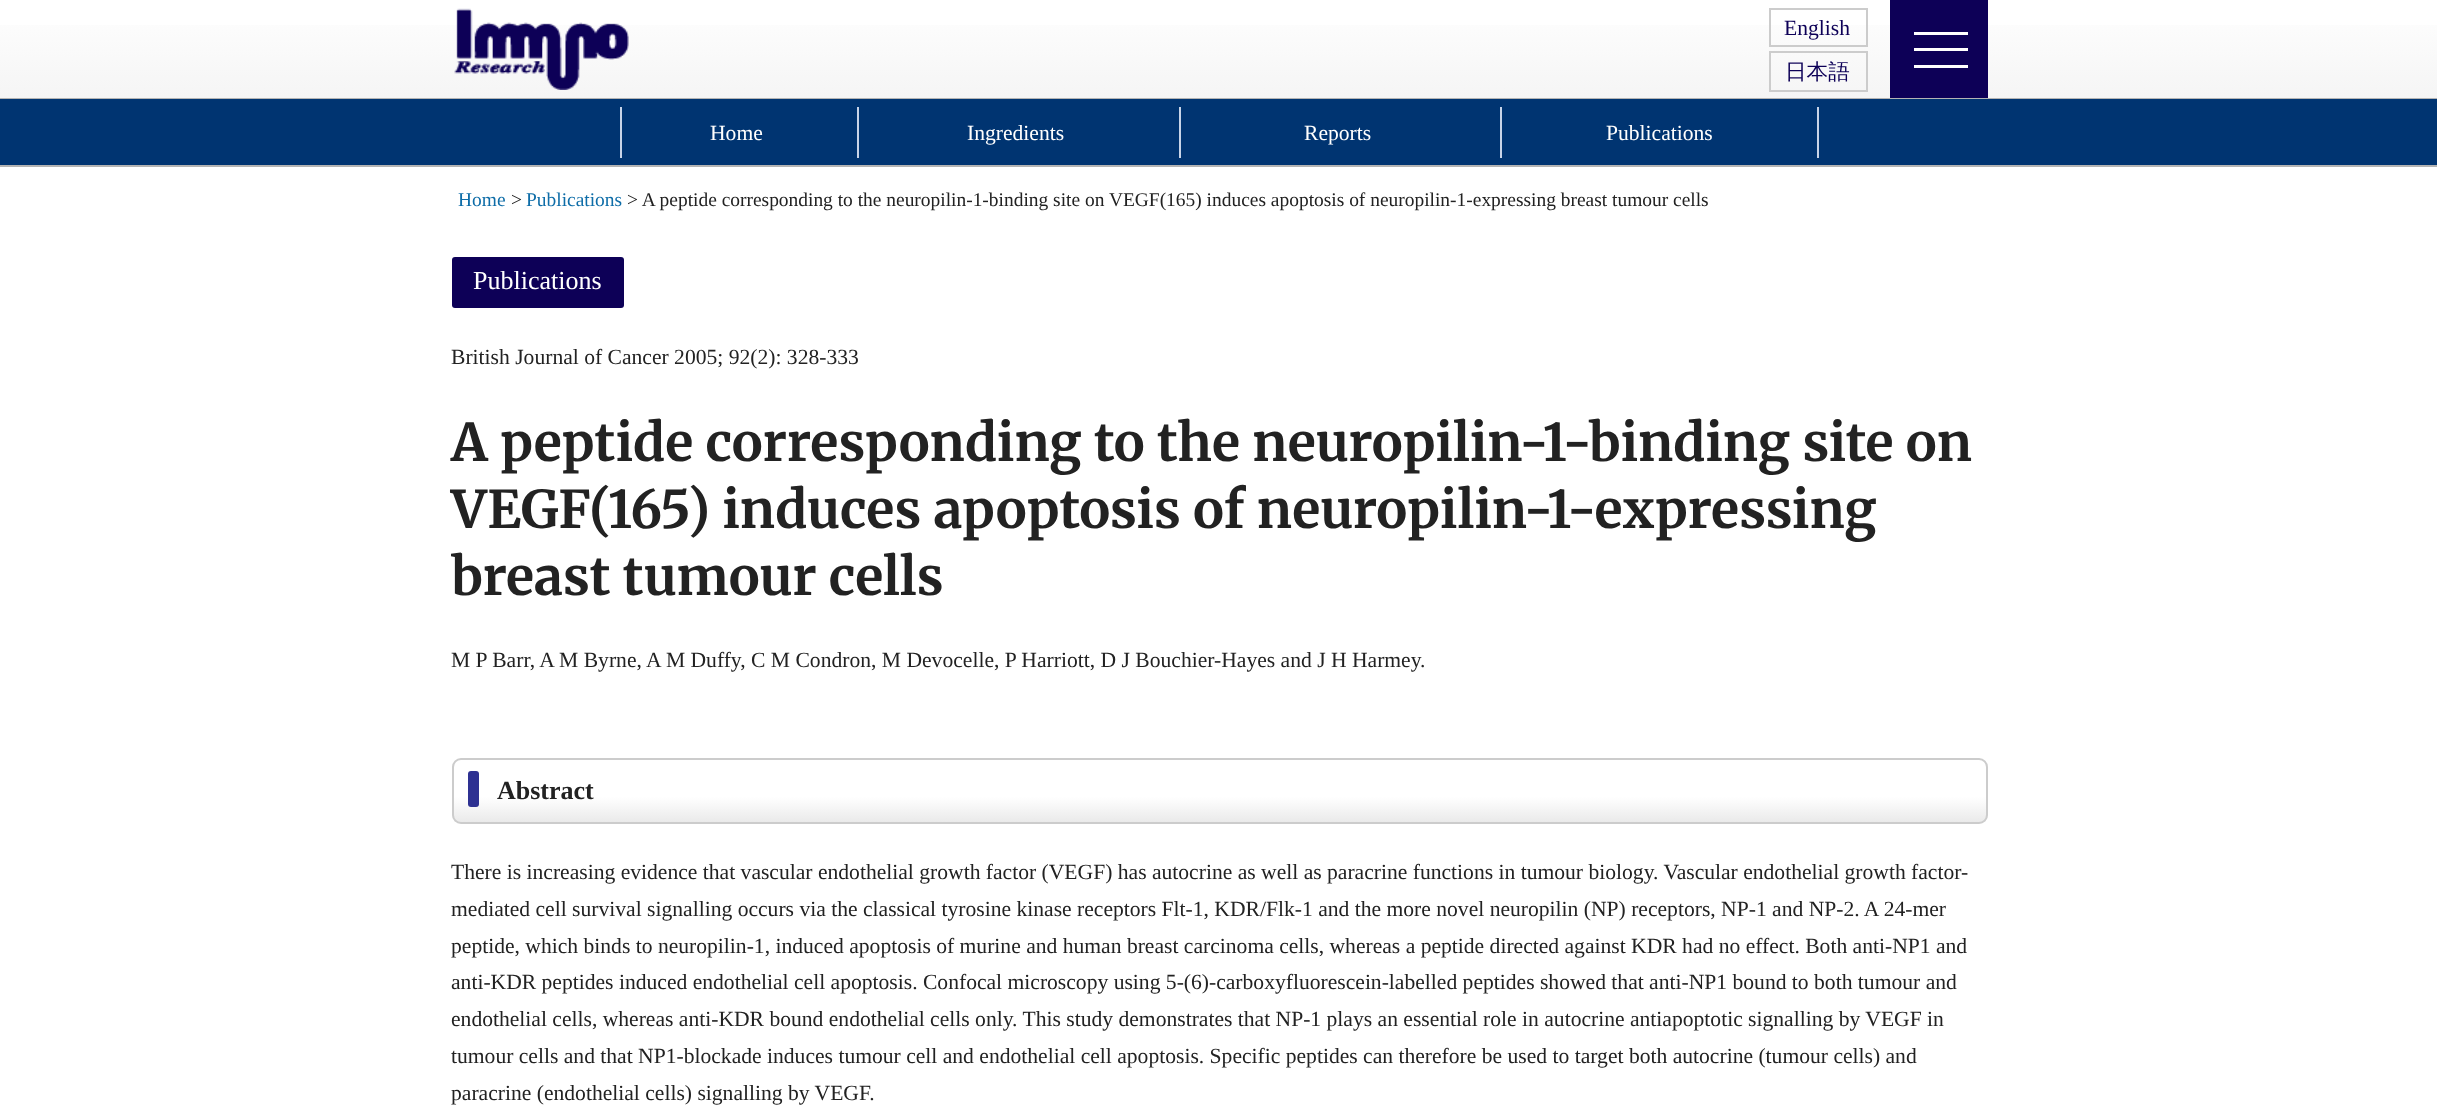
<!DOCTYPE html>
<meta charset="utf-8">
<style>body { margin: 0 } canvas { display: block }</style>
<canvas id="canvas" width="2437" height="1118"></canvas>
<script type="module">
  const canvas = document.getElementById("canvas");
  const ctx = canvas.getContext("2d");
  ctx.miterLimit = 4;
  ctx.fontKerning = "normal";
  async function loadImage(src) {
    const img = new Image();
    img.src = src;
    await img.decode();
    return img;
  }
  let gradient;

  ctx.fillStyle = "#ffffff";
  ctx.fillRect(0, 0, 2437, 1118);
  gradient = ctx.createLinearGradient(1219, 0, 1219, 98);
  gradient.addColorStop(0, "#ffffff");
  gradient.addColorStop(1, "#f5f5f5");
  ctx.fillStyle = gradient;
  ctx.fillRect(0, 25, 2437, 73);
  ctx.fillStyle = "#b3b3b3";
  ctx.fillRect(0, 98, 2437, 1);
  ctx.drawImage(await loadImage("img1.png"), 454, 8, 175, 82);
  ctx.strokeStyle = "#cccccc";
  ctx.lineWidth = 2;
  ctx.strokeRect(1770, 9, 97, 37);
  ctx.font = "21.6px Liberation Serif";
  ctx.fillStyle = "#0d0057";
  ctx.fillText("English", 1784, 35);
  ctx.strokeRect(1770, 52, 97, 39);
  ctx.font = "500 21.6px WenQuanYi Zen Hei";
  ctx.fillText("日本語", 1785, 79);
  ctx.fillRect(1890, 0, 98, 98);
  ctx.fillStyle = "#ffffff";
  ctx.fillRect(1914, 32, 54, 3);
  ctx.fillRect(1914, 48, 54, 3);
  ctx.fillRect(1914, 65, 54, 3);
  ctx.fillStyle = "#003471";
  ctx.fillRect(0, 99, 2437, 66);
  ctx.fillStyle = "#b3b3b3";
  ctx.fillRect(0, 165, 2437, 2);
  ctx.fillStyle = "#c8d4e8";
  ctx.fillRect(620, 107, 2, 51);
  ctx.font = "21.6px Liberation Serif";
  ctx.fillStyle = "#ffffff";
  ctx.fillText("Home", 710, 140);
  ctx.fillStyle = "#c8d4e8";
  ctx.fillRect(857, 107, 2, 51);
  ctx.fillStyle = "#ffffff";
  ctx.fillText("Ingredients", 967, 140);
  ctx.fillStyle = "#c8d4e8";
  ctx.fillRect(1179, 107, 2, 51);
  ctx.fillStyle = "#ffffff";
  ctx.fillText("Reports", 1304, 140);
  ctx.fillStyle = "#c8d4e8";
  ctx.fillRect(1817, 107, 2, 51);
  ctx.fillRect(1500, 107, 2, 51);
  ctx.fillStyle = "#ffffff";
  ctx.fillText("Publications", 1606, 140);
  ctx.font = "19.45px Liberation Serif";
  ctx.fillStyle = "#0e6da8";
  ctx.fillText("Home", 458, 206);
  ctx.fillStyle = "#222222";
  ctx.fillText(">", 511, 206);
  ctx.fillStyle = "#0e6da8";
  ctx.fillText("Publications", 526, 206);
  ctx.fillStyle = "#222222";
  ctx.fillText("> A peptide corresponding to the neuropilin-1-binding site on VEGF(165) induces apoptosis of neuropilin-1-expressing breast tumour cells", 627, 206);
  ctx.fillStyle = "#0d0057";
  ctx.beginPath();
  ctx.roundRect(452, 257, 172, 51, 3);
  ctx.fill();
  ctx.font = "26px Liberation Serif";
  ctx.fillStyle = "#ffffff";
  ctx.fillText("Publications", 473, 289);
  ctx.font = "21.6px Liberation Serif";
  ctx.fillStyle = "#222222";
  ctx.fillText("British Journal of Cancer 2005; 92(2): 328-333", 451, 364);
  ctx.font = "bold 51.85px Merriweather";
  ctx.fillText("A peptide corresponding to the neuropilin-1-binding site on", 451, 461);
  ctx.fillText("VEGF(165) induces apoptosis of neuropilin-1-expressing", 451, 528);
  ctx.fillText("breast tumour cells", 451, 595);
  ctx.font = "21.6px Liberation Serif";
  ctx.fillText("M P Barr, A M Byrne, A M Duffy, C M Condron, M Devocelle, P Harriott, D J Bouchier-Hayes and J H Harmey.", 451, 667);
  ctx.save();
  ctx.beginPath();
  ctx.roundRect(452, 758, 1536, 66, 9);
  ctx.clip();
  gradient = ctx.createLinearGradient(1220, 822, 1220, 759);
  gradient.addColorStop(0, "#eaeaea");
  gradient.addColorStop(0.4, "#ffffff");
  gradient.addColorStop(1, "#ffffff");
  ctx.fillStyle = gradient;
  ctx.fillRect(452, 759, 1536, 63);
  ctx.restore();
  ctx.beginPath();
  ctx.roundRect(453, 759, 1534, 64, 8);
  ctx.stroke();
  ctx.fillStyle = "#2e3192";
  ctx.beginPath();
  ctx.roundRect(468, 771, 11, 36, 3);
  ctx.fill();
  ctx.font = "bold 26px Liberation Serif";
  ctx.fillStyle = "#222222";
  ctx.fillText("Abstract", 497, 799);
  ctx.font = "21.6px Liberation Serif";
  ctx.fillText("There is increasing evidence that vascular endothelial growth factor (VEGF) has autocrine as well as paracrine functions in tumour biology. Vascular endothelial growth factor-", 451, 879);
  ctx.fillText("mediated cell survival signalling occurs via the classical tyrosine kinase receptors Flt-1, KDR/Flk-1 and the more novel neuropilin (NP) receptors, NP-1 and NP-2. A 24-mer", 451, 916);
  ctx.fillText("peptide, which binds to neuropilin-1, induced apoptosis of murine and human breast carcinoma cells, whereas a peptide directed against KDR had no effect. Both anti-NP1 and", 451, 953);
  ctx.fillText("anti-KDR peptides induced endothelial cell apoptosis. Confocal microscopy using 5-(6)-carboxyfluorescein-labelled peptides showed that anti-NP1 bound to both tumour and", 451, 989);
  ctx.fillText("endothelial cells, whereas anti-KDR bound endothelial cells only. This study demonstrates that NP-1 plays an essential role in autocrine antiapoptotic signalling by VEGF in", 451, 1026);
  ctx.fillText("tumour cells and that NP1-blockade induces tumour cell and endothelial cell apoptosis. Specific peptides can therefore be used to target both autocrine (tumour cells) and", 451, 1063);
  ctx.fillText("paracrine (endothelial cells) signalling by VEGF.", 451, 1100);
</script>
